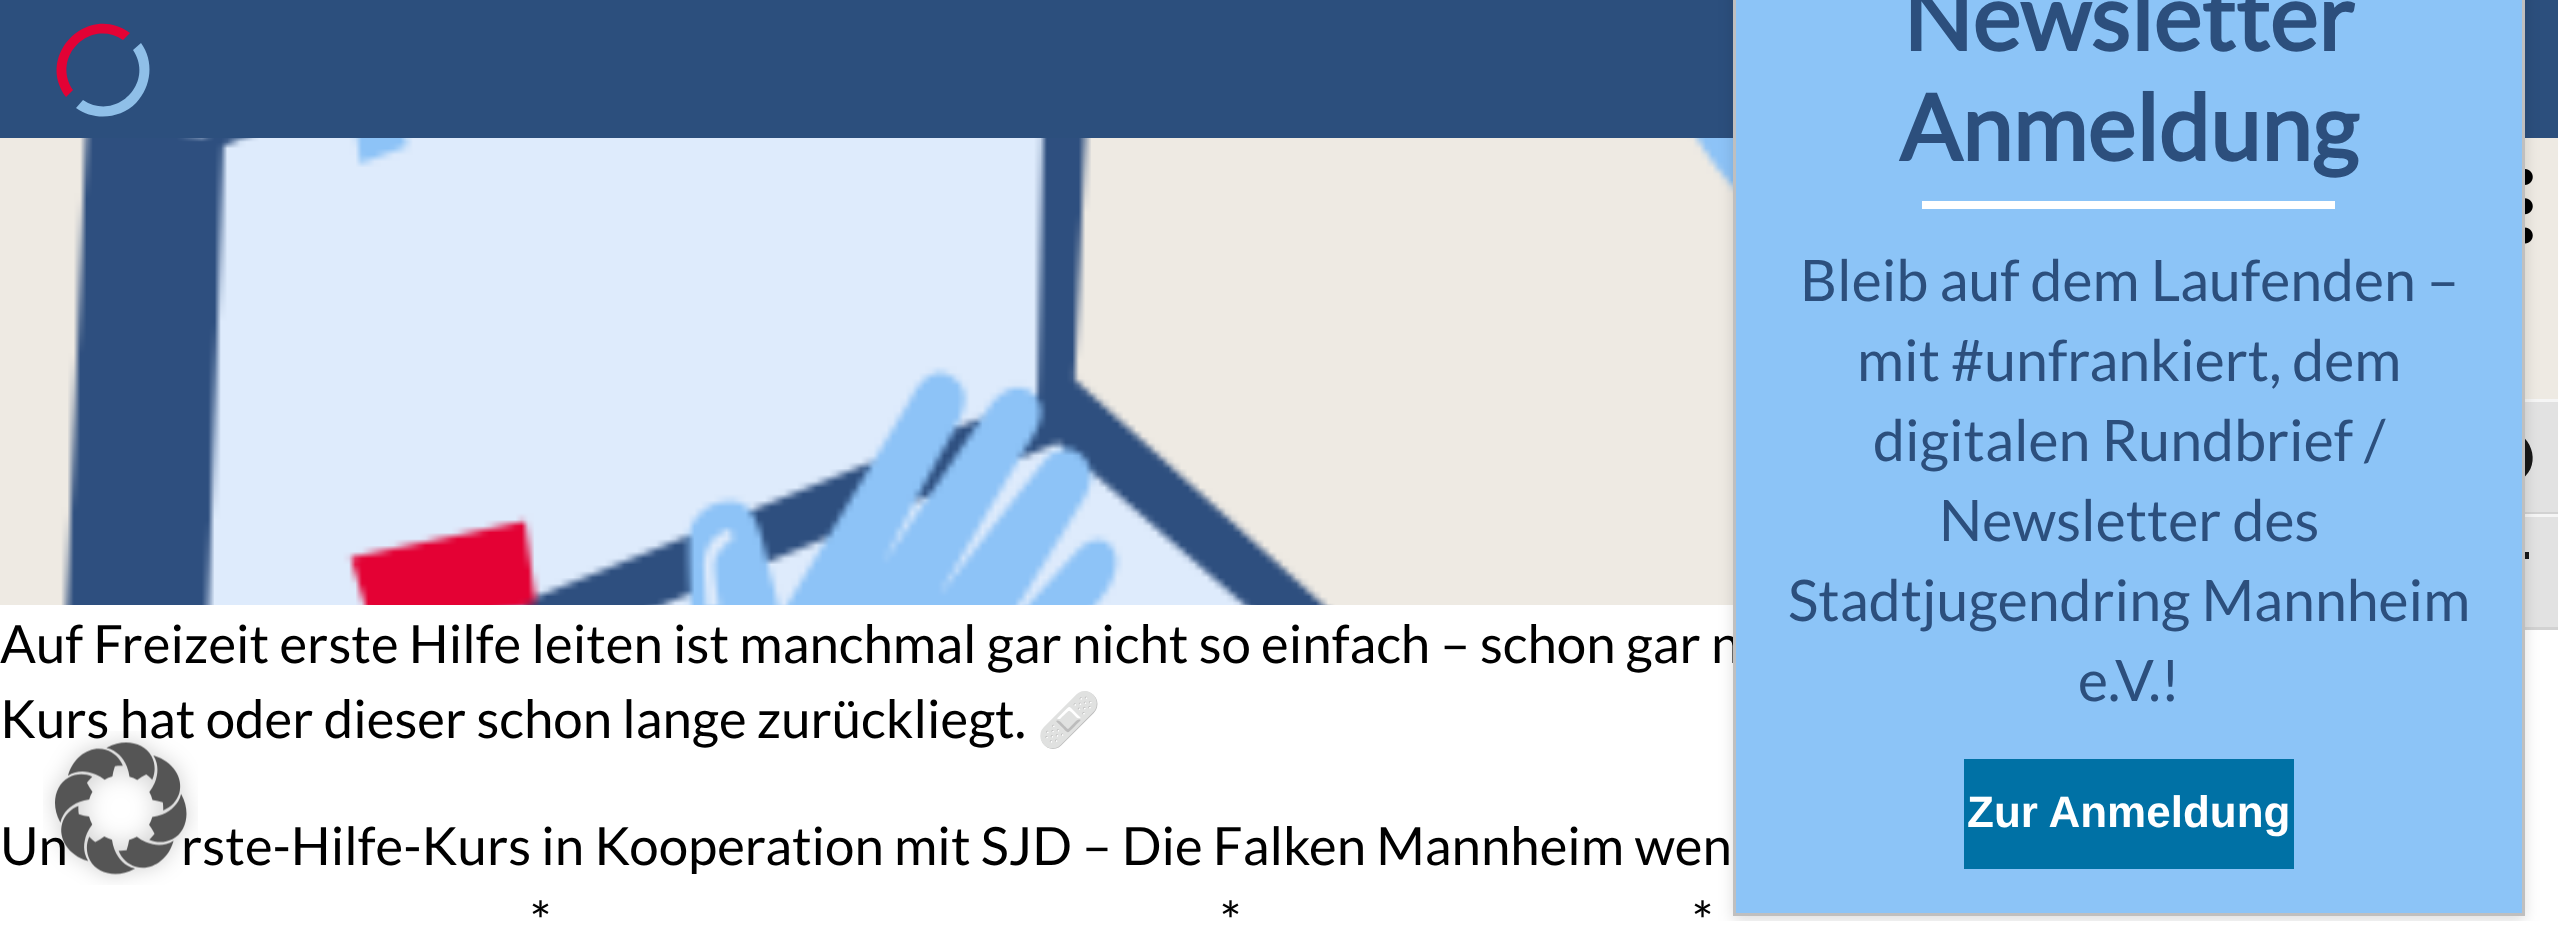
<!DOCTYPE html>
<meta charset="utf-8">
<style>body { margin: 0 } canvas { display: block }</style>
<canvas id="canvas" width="2558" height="928"></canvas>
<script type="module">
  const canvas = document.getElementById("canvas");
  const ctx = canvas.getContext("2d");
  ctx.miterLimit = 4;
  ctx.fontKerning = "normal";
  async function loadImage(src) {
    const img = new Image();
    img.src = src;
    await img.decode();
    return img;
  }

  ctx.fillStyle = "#ffffff";
  ctx.fillRect(0, 0, 2558, 928);
  ctx.drawImage(await loadImage("img2.png"), 0, 138, 2558, 467);
  ctx.fillStyle = "#e2e2e2";
  ctx.fillRect(2525, 402, 33, 110);
  ctx.fillStyle = "#f5f5f5";
  ctx.beginPath();
  ctx.moveTo(2461, 399);
  ctx.lineTo(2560, 399);
  ctx.lineTo(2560, 402);
  ctx.lineTo(2461, 402);
  ctx.bezierCurveTo(2456, 402, 2451, 404, 2450, 408);
  ctx.bezierCurveTo(2450, 403, 2456, 399, 2461, 399);
  ctx.closePath();
  ctx.fill();
  ctx.fillStyle = "#d2d2d2";
  ctx.fillRect(2525, 512, 33, 2);
  ctx.fillStyle = "#181818";
  ctx.beginPath();
  ctx.moveTo(2505, 430);
  ctx.bezierCurveTo(2499, 430, 2494, 432, 2489, 435);
  ctx.bezierCurveTo(2468, 451, 2479, 485, 2505, 485);
  ctx.bezierCurveTo(2511, 485, 2517, 483, 2522, 479);
  ctx.bezierCurveTo(2543, 464, 2531, 430, 2505, 430);
  ctx.closePath();
  ctx.moveTo(2485, 457);
  ctx.bezierCurveTo(2485, 446, 2494, 437, 2505, 437);
  ctx.lineTo(2505, 478);
  ctx.bezierCurveTo(2494, 478, 2485, 468, 2485, 457);
  ctx.closePath();
  ctx.fill();
  ctx.fillStyle = "#e2e2e2";
  ctx.fillRect(2525, 517, 33, 110);
  ctx.fillStyle = "#f5f5f5";
  ctx.fillRect(2525, 514, 33, 3);
  ctx.fillStyle = "#d2d2d2";
  ctx.beginPath();
  ctx.moveTo(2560, 630);
  ctx.lineTo(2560, 627);
  ctx.lineTo(2461, 627);
  ctx.bezierCurveTo(2456, 627, 2451, 624, 2450, 621);
  ctx.bezierCurveTo(2451, 625, 2455, 629, 2459, 630);
  ctx.closePath();
  ctx.fill();
  ctx.fillStyle = "#181818";
  ctx.beginPath();
  ctx.moveTo(2481, 573);
  ctx.lineTo(2502, 573);
  ctx.lineTo(2502, 580);
  ctx.lineTo(2495, 580);
  ctx.lineTo(2495, 600);
  ctx.lineTo(2488, 600);
  ctx.lineTo(2488, 580);
  ctx.lineTo(2481, 580);
  ctx.closePath();
  ctx.moveTo(2529, 559);
  ctx.lineTo(2516, 559);
  ctx.lineTo(2516, 600);
  ctx.lineTo(2508, 600);
  ctx.lineTo(2508, 559);
  ctx.lineTo(2495, 559);
  ctx.lineTo(2495, 552);
  ctx.lineTo(2529, 552);
  ctx.closePath();
  ctx.fill();
  ctx.fillStyle = "#2c4f7d";
  ctx.fillRect(0, 0, 2558, 138);
  ctx.drawImage(await loadImage("img1.png"), 2525, 169, 8, 75);
  ctx.save();
  ctx.beginPath();
  ctx.rect(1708, 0, 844, 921);
  ctx.clip();
  ctx.fillStyle = "rgba(0, 0, 0, 0.13)";
  ctx.filter = "blur(7.5px)";
  ctx.beginPath();
  ctx.rect(1733, -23, 792, 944);
  ctx.fill();
  ctx.filter = "none";
  ctx.restore();
  ctx.font = "52.8px Lato";
  ctx.fillStyle = "#000000";
  ctx.fillText("Auf Freizeit erste Hilfe leiten ist manchmal gar nicht so einfach – schon gar n", 0, 663);
  ctx.fillStyle = "#8cc4f7";
  ctx.beginPath();
  ctx.rect(1734.5, -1.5, 789, 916);
  ctx.fill();
  ctx.strokeStyle = "#bfbfbf";
  ctx.lineWidth = 3;
  ctx.stroke();
  ctx.font = "bold 91.5px Lato";
  ctx.fillStyle = "#2c4f7d";
  ctx.fillText("Newsletter", 1903, 51);
  ctx.fillText("Anmeldung", 1899, 161);
  ctx.fillStyle = "#ffffff";
  ctx.fillRect(1922, 201, 413, 8);
  ctx.font = "57.25px Lato";
  ctx.fillStyle = "#2c4f7d";
  ctx.fillText("Bleib auf dem Laufenden –", 1800, 301);
  ctx.fillText("mit #unfrankiert, dem", 1857, 381);
  ctx.fillText("digitalen Rundbrief /", 1873, 461);
  ctx.fillText("Newsletter des", 1939, 541);
  ctx.fillText("Stadtjugendring Mannheim", 1788, 621);
  ctx.fillText("e.V.!", 2078, 701);
  ctx.fillStyle = "#0071a5";
  ctx.fillRect(1964, 759, 330, 110);
  ctx.font = "bold 44px Liberation Sans";
  ctx.fillStyle = "#ffffff";
  ctx.fillText("Zur Anmeldung", 1967, 827);
  ctx.fillStyle = "#8fbfe8";
  ctx.beginPath();
  ctx.moveTo(133, 50);
  ctx.bezierCurveTo(155, 83, 116, 122, 83, 100);
  ctx.lineTo(76, 108);
  ctx.bezierCurveTo(94, 121, 120, 119, 136, 103);
  ctx.bezierCurveTo(152, 86, 154, 61, 141, 43);
  ctx.closePath();
  ctx.fill();
  ctx.fillStyle = "#e30235";
  ctx.beginPath();
  ctx.moveTo(73, 90);
  ctx.bezierCurveTo(51, 57, 90, 18, 123, 40);
  ctx.lineTo(130, 33);
  ctx.bezierCurveTo(88, 2, 35, 55, 66, 97);
  ctx.closePath();
  ctx.fill();
  ctx.font = "52.8px Lato";
  ctx.fillStyle = "#000000";
  ctx.fillText("Kurs hat oder dieser schon lange zurückliegt.", 0, 738);
  ctx.font = "52.8px Noto Color Emoji";
  ctx.fillText("🩹", 1036, 738);
  ctx.font = "52.8px Lato";
  ctx.fillText("Un", 0, 865);
  ctx.fillText("rste-Hilfe-Kurs in Kooperation mit SJD – Die Falken Mannheim wen", 181, 865);
  ctx.fillText("*", 530, 940);
  ctx.fillText("*", 1220, 940);
  ctx.fillText("*", 1692, 940);
  ctx.drawImage(await loadImage("img3.png"), 43, 731, 155, 154);
</script>
